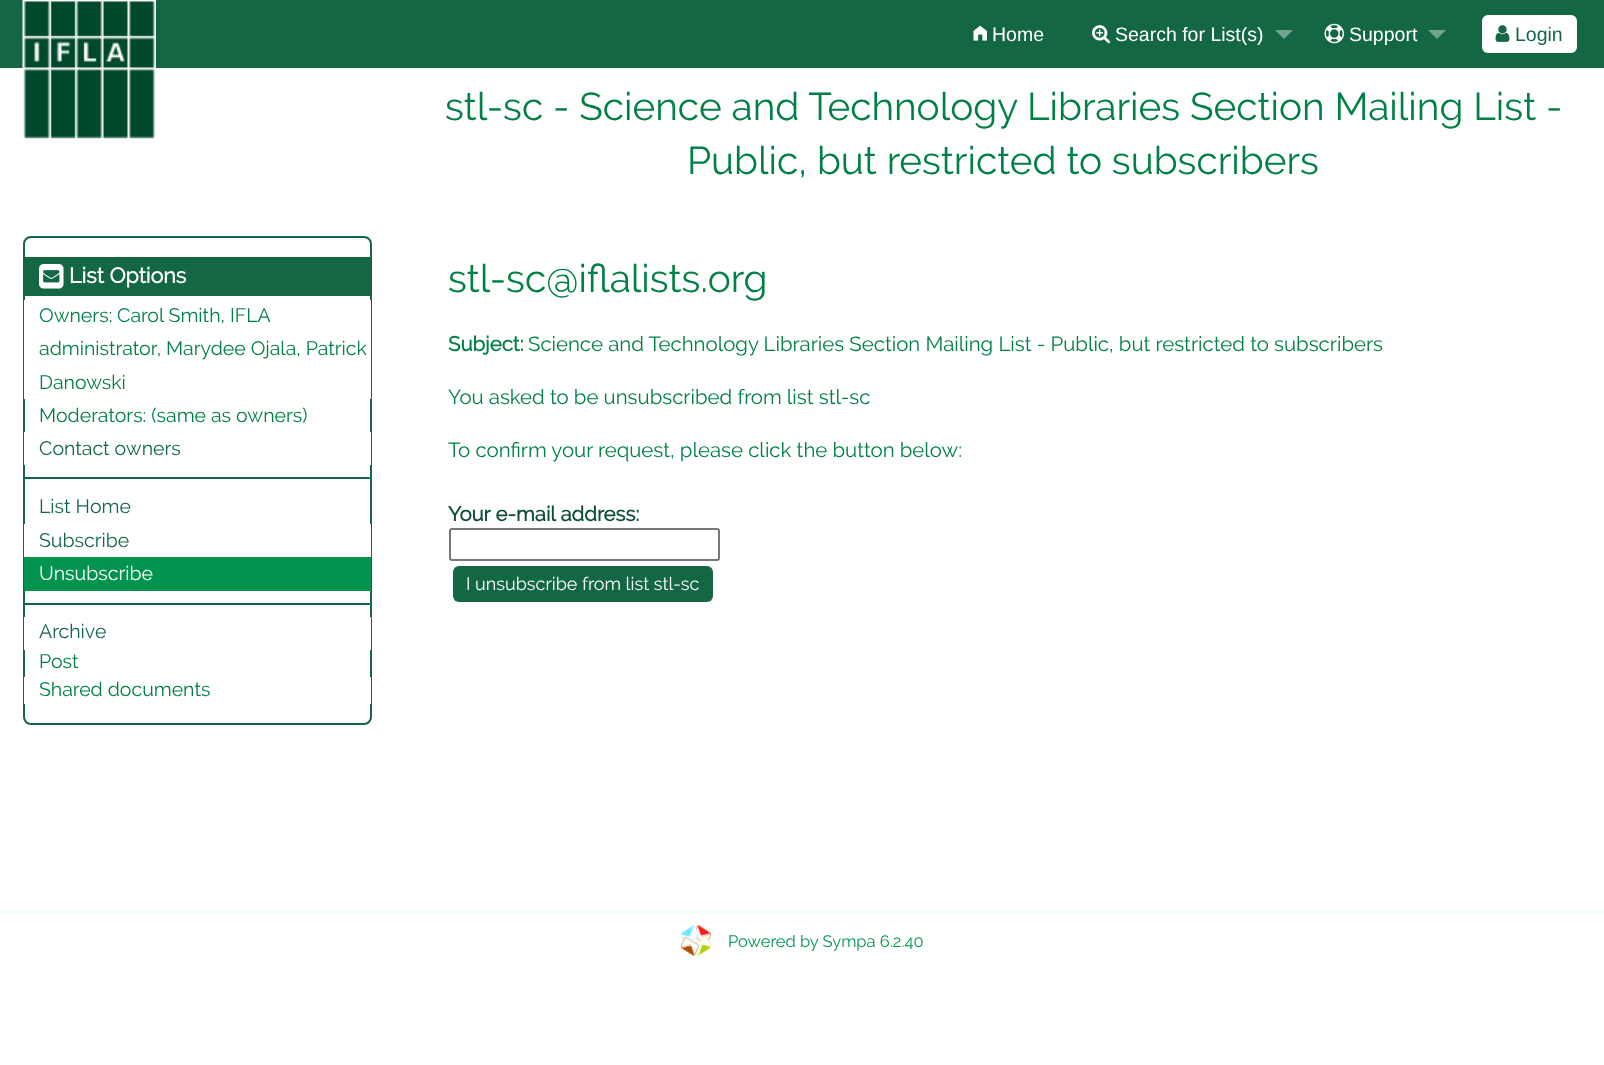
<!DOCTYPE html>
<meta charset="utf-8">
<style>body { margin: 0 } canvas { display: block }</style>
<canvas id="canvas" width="1604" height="1065"></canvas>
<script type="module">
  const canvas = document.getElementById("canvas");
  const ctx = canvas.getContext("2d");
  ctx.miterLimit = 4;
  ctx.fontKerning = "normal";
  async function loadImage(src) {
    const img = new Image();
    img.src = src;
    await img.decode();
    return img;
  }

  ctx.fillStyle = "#ffffff";
  ctx.fillRect(0, 0, 1604, 1065);
  ctx.fillStyle = "#136743";
  ctx.fillRect(0, 0, 1604, 68);
  ctx.drawImage(await loadImage("img1.png"), 22, 0, 134, 139);
  ctx.drawImage(await loadImage("img2.png"), 973, 25, 14, 16);
  ctx.font = "19.5px Liberation Sans";
  ctx.fillStyle = "#ffffff";
  ctx.fillText("Home", 992, 41);
  ctx.drawImage(await loadImage("img3.png"), 1092, 25, 19, 19);
  ctx.fillText("Search for List(s)", 1115, 41);
  ctx.fillStyle = "#71a48e";
  ctx.beginPath();
  ctx.moveTo(1275, 30);
  ctx.lineTo(1293, 30);
  ctx.lineTo(1284, 39);
  ctx.closePath();
  ctx.fill();
  ctx.drawImage(await loadImage("img4.png"), 1324, 23, 20, 21);
  ctx.fillStyle = "#ffffff";
  ctx.fillText("Support", 1349, 41);
  ctx.fillStyle = "#71a48e";
  ctx.beginPath();
  ctx.moveTo(1428, 30);
  ctx.lineTo(1446, 30);
  ctx.lineTo(1437, 39);
  ctx.closePath();
  ctx.fill();
  ctx.fillStyle = "#ffffff";
  ctx.beginPath();
  ctx.roundRect(1482, 15, 95, 38, 6);
  ctx.fill();
  ctx.drawImage(await loadImage("img5.png"), 1495, 25, 15, 17);
  ctx.fillStyle = "#136743";
  ctx.fillText("Login", 1515, 41);
  ctx.font = "38.75px Raleway";
  ctx.fillStyle = "#008044";
  ctx.fillText("stl-sc - Science and Technology Libraries Section Mailing List -", 445, 120);
  ctx.fillText("Public, but restricted to subscribers", 687, 174);
  ctx.beginPath();
  ctx.roundRect(24, 237, 347, 487, 7);
  ctx.strokeStyle = "#136743";
  ctx.lineWidth = 2;
  ctx.stroke();
  ctx.fillStyle = "#136743";
  ctx.fillRect(25, 257, 345, 39);
  ctx.drawImage(await loadImage("img6.png"), 39, 264, 25, 25);
  ctx.font = "bold 21.5px Raleway";
  ctx.fillStyle = "#ffffff";
  ctx.fillText("List Options", 69, 283);
  ctx.fillRect(24, 300, 347, 99);
  ctx.font = "19.5px Raleway";
  ctx.fillStyle = "#008044";
  ctx.fillText("Owners:", 39, 322);
  ctx.fillText("Carol Smith, IFLA", 117, 322);
  ctx.fillText("administrator, Marydee Ojala, Patrick", 39, 355);
  ctx.fillText("Danowski", 39, 389);
  ctx.fillText("Moderators: (same as owners)", 39, 422);
  ctx.fillStyle = "#ffffff";
  ctx.fillRect(24, 432, 347, 33);
  ctx.fillStyle = "#136743";
  ctx.fillText("Contact owners", 39, 455);
  ctx.fillRect(24, 477, 347, 2);
  ctx.fillStyle = "#00944f";
  ctx.fillRect(369, 477, 2, 2);
  ctx.fillStyle = "#136743";
  ctx.fillText("List Home", 39, 513);
  ctx.fillStyle = "#ffffff";
  ctx.fillRect(24, 524, 347, 33);
  ctx.fillStyle = "#136743";
  ctx.fillText("Subscribe", 39, 547);
  ctx.fillStyle = "#00944f";
  ctx.fillRect(24, 557, 347, 34);
  ctx.fillStyle = "#ffffff";
  ctx.fillText("Unsubscribe", 39, 580);
  ctx.fillStyle = "#136743";
  ctx.fillRect(24, 603, 347, 2);
  ctx.fillStyle = "#00944f";
  ctx.fillRect(369, 603, 2, 2);
  ctx.fillStyle = "#ffffff";
  ctx.fillRect(24, 617, 347, 33);
  ctx.fillStyle = "#136743";
  ctx.fillText("Archive", 39, 638);
  ctx.fillStyle = "#008044";
  ctx.fillText("Post", 39, 668);
  ctx.fillStyle = "#ffffff";
  ctx.fillRect(24, 677, 347, 27);
  ctx.fillStyle = "#008044";
  ctx.fillText("Shared documents", 39, 696);
  ctx.font = "38.75px Raleway";
  ctx.fillText("stl-sc@iflalists.org", 448, 292);
  ctx.font = "bold 20.4px Raleway";
  ctx.fillText("Subject:", 448, 351);
  ctx.font = "20.4px Raleway";
  ctx.fillText("Science and Technology Libraries Section Mailing List - Public, but restricted to subscribers", 528, 351);
  ctx.fillText("You asked to be unsubscribed from list stl-sc", 448, 404);
  ctx.fillText("To confirm your request, please click the button below:", 448, 457);
  ctx.font = "bold 20.4px Raleway";
  ctx.fillStyle = "#0d4f34";
  ctx.fillText("Your e-mail address:", 448, 521);
  ctx.beginPath();
  ctx.roundRect(450, 529, 269, 31, 2);
  ctx.strokeStyle = "#767676";
  ctx.stroke();
  ctx.fillStyle = "#136743";
  ctx.beginPath();
  ctx.roundRect(453, 566, 260, 36, 6);
  ctx.fill();
  ctx.font = "18px Raleway";
  ctx.fillStyle = "#ffffff";
  ctx.fillText("I unsubscribe from list stl-sc", 466, 590);
  ctx.fillStyle = "#f0fff7";
  ctx.fillRect(0, 911, 1604, 2);
  ctx.drawImage(await loadImage("img7.png"), 681, 925, 30, 31);
  ctx.font = "16.5px Raleway";
  ctx.fillStyle = "#00944f";
  ctx.fillText("Powered by Sympa 6.2.40", 728, 947);
</script>
